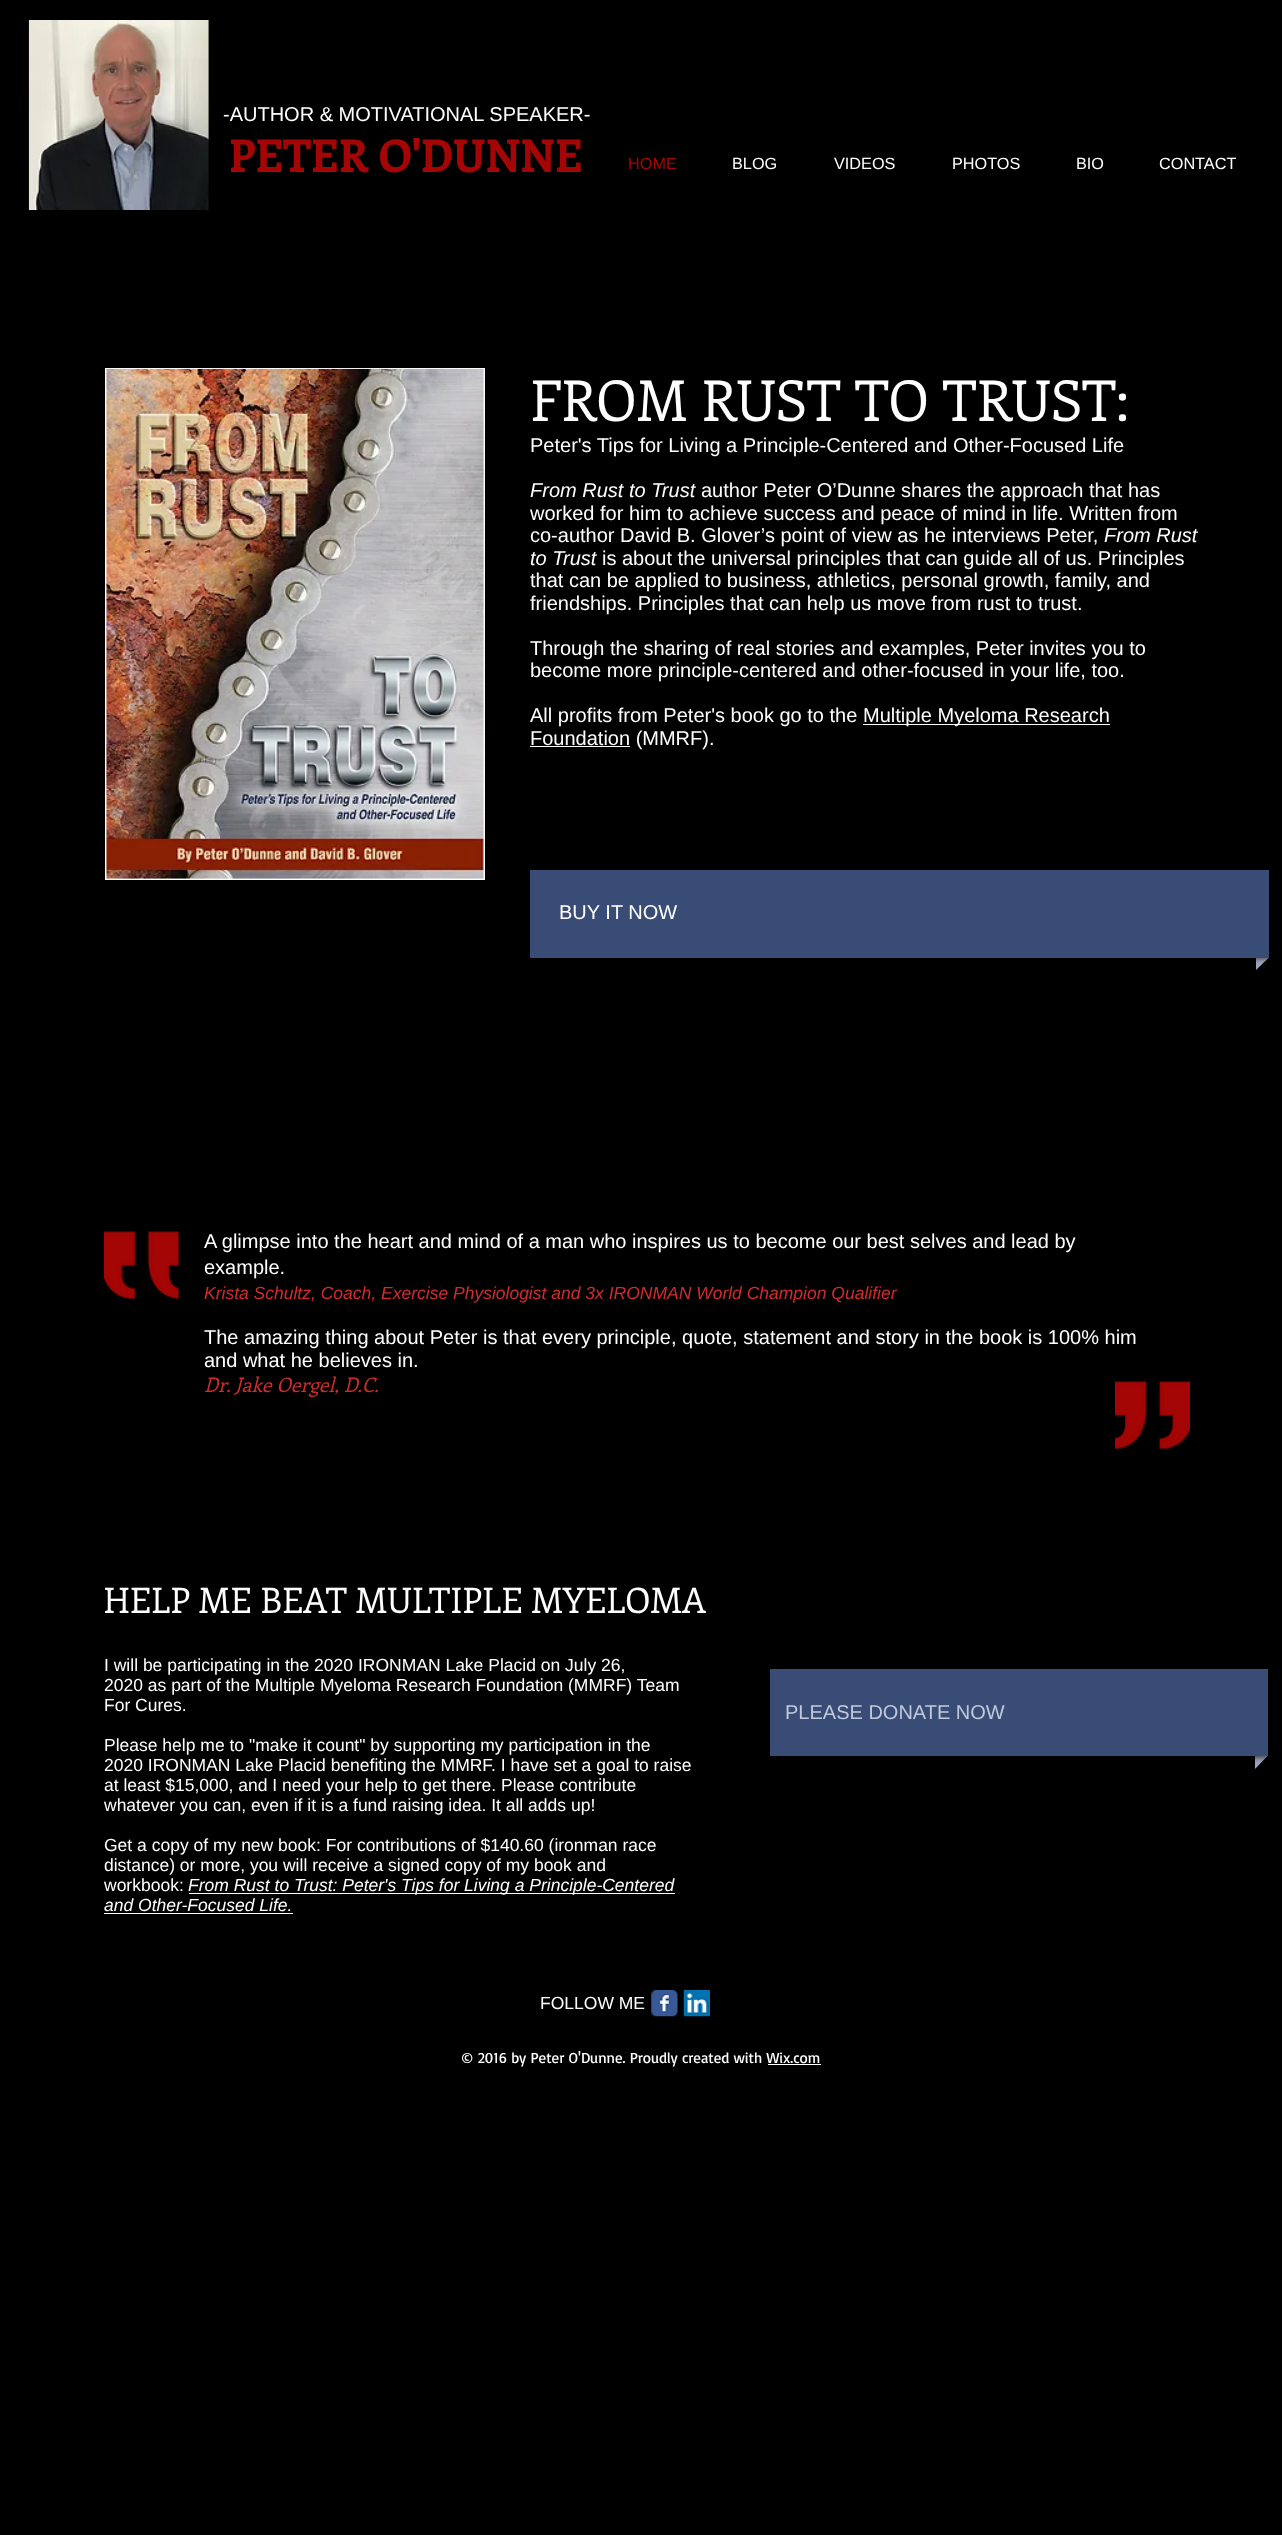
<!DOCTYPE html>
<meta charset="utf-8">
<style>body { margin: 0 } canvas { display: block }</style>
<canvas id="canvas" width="1282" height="2535"></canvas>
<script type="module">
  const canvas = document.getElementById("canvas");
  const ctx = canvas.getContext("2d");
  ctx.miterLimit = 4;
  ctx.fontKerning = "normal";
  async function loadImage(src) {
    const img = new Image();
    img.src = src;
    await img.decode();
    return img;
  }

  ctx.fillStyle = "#000000";
  ctx.fillRect(0, 0, 1282, 2535);
  ctx.drawImage(await loadImage("img1.png"), 28, 20, 181, 190);
  ctx.font = "20px Liberation Sans";
  ctx.fillStyle = "#ffffff";
  ctx.fillText("-AUTHOR & MOTIVATIONAL SPEAKER-", 223, 121);
  ctx.font = "bold 45px Enriqueta";
  ctx.fillStyle = "#a40606";
  ctx.fillText("PETER O'DUNNE", 229, 172);
  ctx.font = "16.25px Liberation Sans";
  ctx.fillText("HOME", 628, 169);
  ctx.fillStyle = "#ffffff";
  ctx.fillText("BLOG", 732, 169);
  ctx.fillText("VIDEOS", 834, 169);
  ctx.fillText("PHOTOS", 952, 169);
  ctx.fillText("BIO", 1076, 169);
  ctx.fillText("CONTACT", 1159, 169);
  ctx.fillRect(105, 368, 380, 512);
  ctx.drawImage(await loadImage("img2.png"), 106, 368, 378, 511);
  ctx.font = "56.25px Enriqueta";
  ctx.fillText("FROM RUST TO TRUST:", 530, 421);
  ctx.font = "20px Liberation Sans";
  ctx.fillText("Peter's Tips for Living a Principle-Centered and Other-Focused Life", 530, 452);
  ctx.font = "italic 20px Liberation Sans";
  ctx.fillText("From Rust to Trust", 530, 497);
  ctx.font = "20px Liberation Sans";
  ctx.fillText("author Peter O’Dunne shares the approach that has", 701, 497);
  ctx.fillText("worked for him to achieve success and peace of mind in life. Written from", 530, 520);
  ctx.fillText("co-author David B. Glover’s point of view as he interviews Peter,", 530, 542);
  ctx.font = "italic 20px Liberation Sans";
  ctx.fillText("From Rust", 1104, 542);
  ctx.fillText("to Trust", 530, 565);
  ctx.font = "20px Liberation Sans";
  ctx.fillText("is about the universal principles that can guide all of us. Principles", 602, 565);
  ctx.fillText("that can be applied to business, athletics, personal growth, family, and", 530, 587);
  ctx.fillText("friendships. Principles that can help us move from rust to trust.", 530, 610);
  ctx.fillText("Through the sharing of real stories and examples, Peter invites you to", 530, 655);
  ctx.fillText("become more principle-centered and other-focused in your life, too.", 530, 677);
  ctx.fillText("All profits from Peter's book go to the", 530, 722);
  ctx.fillRect(863, 724, 247, 1);
  ctx.fillText("Multiple Myeloma Research", 863, 722);
  ctx.fillRect(530, 746, 100, 1);
  ctx.fillText("Foundation (MMRF).", 530, 745);
  ctx.fillStyle = "#9aa4ba";
  ctx.beginPath();
  ctx.moveTo(1256, 957.5);
  ctx.lineTo(1269, 957.5);
  ctx.lineTo(1256, 970);
  ctx.closePath();
  ctx.fill();
  ctx.fillStyle = "rgba(0, 0, 0, 0.6)";
  ctx.filter = "blur(2.5px)";
  ctx.beginPath();
  ctx.rect(530, 871, 739, 88);
  ctx.fill();
  ctx.filter = "none";
  ctx.fillStyle = "#394c75";
  ctx.fillRect(530, 870, 739, 88);
  ctx.fillStyle = "#ffffff";
  ctx.fillText("BUY IT NOW", 559, 919);
  ctx.drawImage(await loadImage("img3.png"), 103, 1231, 76, 68);
  ctx.fillText("A glimpse into the heart and mind of a man who inspires us to become our best selves and lead by", 204, 1248);
  ctx.fillText("example.", 204, 1274);
  ctx.font = "italic 17.5px Liberation Sans";
  ctx.fillStyle = "#cf2d2d";
  ctx.fillText("Krista Schultz, Coach, Exercise Physiologist and 3x IRONMAN World Champion Qualifier", 204, 1299);
  ctx.font = "20px Liberation Sans";
  ctx.fillStyle = "#ffffff";
  ctx.fillText("The amazing thing about Peter is that every principle, quote, statement and story in the book is 100% him", 204, 1344);
  ctx.fillText("and what he believes in.", 204, 1367);
  ctx.font = "italic 20px Enriqueta";
  ctx.fillStyle = "#cf2d2d";
  ctx.fillText("Dr. Jake Oergel, D.C.", 204, 1392);
  ctx.drawImage(await loadImage("img4.png"), 1115, 1381, 75, 68);
  ctx.font = "35px Enriqueta";
  ctx.fillStyle = "#ffffff";
  ctx.fillText("HELP ME BEAT MULTIPLE MYELOMA", 104, 1613);
  ctx.font = "17.5px Liberation Sans";
  ctx.fillText("I will be participating in the 2020 IRONMAN Lake Placid on July 26,", 104, 1671);
  ctx.fillText("2020 as part of the Multiple Myeloma Research Foundation (MMRF) Team", 104, 1691);
  ctx.fillText("For Cures.", 104, 1711);
  ctx.fillText("Please help me to \"make it count\" by supporting my participation in the", 104, 1751);
  ctx.fillText("2020 IRONMAN Lake Placid benefiting the MMRF. I have set a goal to raise", 104, 1771);
  ctx.fillText("at least $15,000, and I need your help to get there. Please contribute", 104, 1791);
  ctx.fillText("whatever you can, even if it is a fund raising idea. It all adds up!", 104, 1811);
  ctx.fillText("Get a copy of my new book: For contributions of $140.60 (ironman race", 104, 1851);
  ctx.fillText("distance) or more, you will receive a signed copy of my book and", 104, 1871);
  ctx.fillText("workbook:", 104, 1891);
  ctx.fillRect(189, 1893, 486, 1);
  ctx.font = "italic 17.5px Liberation Sans";
  ctx.fillText("From Rust to Trust: Peter's Tips for Living a Principle-Centered", 188, 1891);
  ctx.fillText("and Other-Focused Life.", 104, 1911);
  ctx.fillRect(104, 1913, 189, 1);
  ctx.fillStyle = "#9aa4ba";
  ctx.beginPath();
  ctx.moveTo(1255, 1756);
  ctx.lineTo(1267.5, 1756);
  ctx.lineTo(1255, 1769);
  ctx.closePath();
  ctx.fill();
  ctx.fillStyle = "rgba(0, 0, 0, 0.6)";
  ctx.filter = "blur(2.5px)";
  ctx.beginPath();
  ctx.rect(770, 1670, 498, 88);
  ctx.fill();
  ctx.filter = "none";
  ctx.fillStyle = "#394c75";
  ctx.fillRect(770, 1669, 498, 87);
  ctx.font = "20px Liberation Sans";
  ctx.fillStyle = "#c0c9dc";
  ctx.fillText("PLEASE DONATE NOW", 785, 1719);
  ctx.font = "17.5px Liberation Sans";
  ctx.fillStyle = "#ffffff";
  ctx.fillText("FOLLOW ME", 540, 2009);
  ctx.drawImage(await loadImage("img5.png"), 651, 1990, 27, 27);
  ctx.drawImage(await loadImage("img6.png"), 683, 1990, 27, 27);
  ctx.font = "15px Basic";
  ctx.fillText("© 2016 by Peter O'Dunne. Proudly created with Wix.com", 461, 2063);
  ctx.fillRect(768, 2064, 53, 1);
</script>
